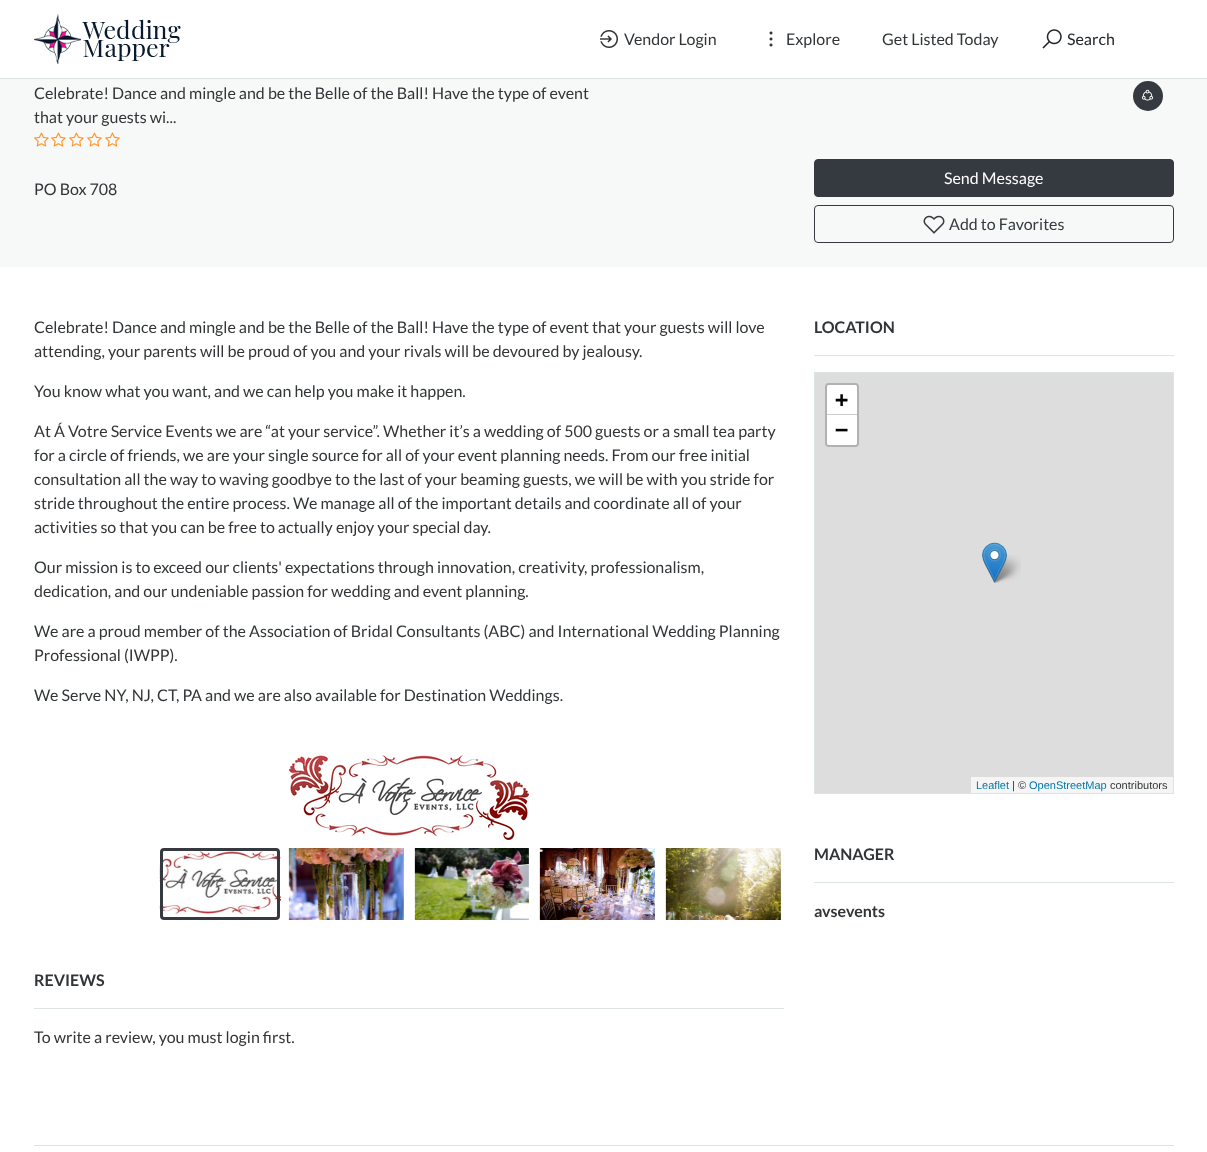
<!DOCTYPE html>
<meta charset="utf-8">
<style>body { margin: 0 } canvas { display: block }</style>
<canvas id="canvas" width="1207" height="1152"></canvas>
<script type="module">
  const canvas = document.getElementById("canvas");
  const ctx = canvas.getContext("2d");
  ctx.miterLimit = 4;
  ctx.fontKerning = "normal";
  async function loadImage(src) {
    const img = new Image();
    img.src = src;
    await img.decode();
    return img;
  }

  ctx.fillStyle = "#ffffff";
  ctx.fillRect(0, 0, 1207, 1152);
  ctx.fillStyle = "#dee3e5";
  ctx.fillRect(0, 78, 1207, 1);
  ctx.drawImage(await loadImage("img1.png"), 34, 14, 147, 50);
  ctx.drawImage(await loadImage("img2.png"), 600, 30, 18, 18);
  ctx.font = "16px Lato";
  ctx.fillStyle = "#323537";
  ctx.fillText("Vendor Login", 624, 45);
  ctx.drawImage(await loadImage("img3.png"), 769, 31, 4, 16);
  ctx.fillText("Explore", 786, 45);
  ctx.fillText("Get Listed Today", 882, 45);
  ctx.drawImage(await loadImage("img4.png"), 1042, 29, 20, 20);
  ctx.fillStyle = "#212529";
  ctx.fillText("Search", 1067, 45);
  ctx.fillStyle = "#f7f9f9";
  ctx.fillRect(0, 79, 1207, 188);
  ctx.fillStyle = "#323537";
  ctx.fillText("Celebrate! Dance and mingle and be the Belle of the Ball! Have the type of event", 34, 99);
  ctx.fillText("that your guests wi...", 34, 123);
  ctx.drawImage(await loadImage("img5.png"), 34, 132, 15, 15);
  ctx.drawImage(await loadImage("img5.png"), 51, 132, 15, 15);
  ctx.drawImage(await loadImage("img5.png"), 69, 132, 15, 15);
  ctx.drawImage(await loadImage("img5.png"), 87, 132, 15, 15);
  ctx.drawImage(await loadImage("img5.png"), 105, 132, 15, 15);
  ctx.fillText("PO Box 708", 34, 195);
  ctx.fillStyle = "#343a40";
  ctx.beginPath();
  ctx.arc(1148, 96, 15, 0, Math.PI * 2);
  ctx.fill();
  ctx.drawImage(await loadImage("img6.png"), 1141, 89, 13, 12);
  ctx.beginPath();
  ctx.roundRect(814.5, 159.5, 359, 37, 3.5);
  ctx.fill();
  ctx.strokeStyle = "#343a40";
  ctx.stroke();
  ctx.fillStyle = "#ffffff";
  ctx.fillText("Send Message", 944, 184);
  ctx.beginPath();
  ctx.roundRect(814.5, 205.5, 359, 37, 3.5);
  ctx.stroke();
  ctx.drawImage(await loadImage("img7.png"), 923, 215, 22, 19);
  ctx.fillStyle = "#343a40";
  ctx.fillText("Add to Favorites", 949, 230);
  ctx.fillStyle = "#323537";
  ctx.fillText("Celebrate! Dance and mingle and be the Belle of the Ball! Have the type of event that your guests will love", 34, 333);
  ctx.fillText("attending, your parents will be proud of you and your rivals will be devoured by jealousy.", 34, 357);
  ctx.fillText("You know what you want, and we can help you make it happen.", 34, 397);
  ctx.fillText("At Á Votre Service Events we are “at your service”. Whether it’s a wedding of 500 guests or a small tea party", 34, 437);
  ctx.fillText("for a circle of friends, we are your single source for all of your event planning needs. From our free initial", 34, 461);
  ctx.fillText("consultation all the way to waving goodbye to the last of your beaming guests, we will be with you stride for", 34, 485);
  ctx.fillText("stride throughout the entire process. We manage all of the important details and coordinate all of your", 34, 509);
  ctx.fillText("activities so that you can be free to actually enjoy your special day.", 34, 533);
  ctx.fillText("Our mission is to exceed our clients' expectations through innovation, creativity, professionalism,", 34, 573);
  ctx.fillText("dedication, and our undeniable passion for wedding and event planning.", 34, 597);
  ctx.fillText("We are a proud member of the Association of Bridal Consultants (ABC) and International Wedding Planning", 34, 637);
  ctx.fillText("Professional (IWPP).", 34, 661);
  ctx.fillText("We Serve NY, NJ, CT, PA and we are also available for Destination Weddings.", 34, 701);
  ctx.drawImage(await loadImage("img8.png"), 289, 755, 240, 85);
  ctx.drawImage(await loadImage("img9.png"), 159, 851, 122, 64);
  ctx.beginPath();
  ctx.roundRect(161.5, 849.5, 117, 69, 2.5);
  ctx.lineWidth = 3;
  ctx.stroke();
  ctx.drawImage(await loadImage("img10.png"), 288, 848, 116, 72);
  ctx.drawImage(await loadImage("img11.png"), 414, 848, 115, 72);
  ctx.drawImage(await loadImage("img12.png"), 539, 848, 116, 72);
  ctx.drawImage(await loadImage("img13.png"), 665, 848, 116, 72);
  ctx.drawImage(await loadImage("img14.png"), 747, 876, 10, 16);
  ctx.font = "bold 16px Lato";
  ctx.fillText("REVIEWS", 34, 986);
  ctx.fillStyle = "#dee3e5";
  ctx.fillRect(34, 1008, 750, 1);
  ctx.font = "16px Lato";
  ctx.fillStyle = "#323537";
  ctx.fillText("To write a review, you must login first.", 34, 1043);
  ctx.font = "bold 16px Lato";
  ctx.fillText("LOCATION", 814, 333);
  ctx.fillStyle = "#dee3e5";
  ctx.fillRect(814, 355, 360, 1);
  ctx.strokeStyle = "#dee3e5";
  ctx.lineWidth = 1;
  ctx.strokeRect(814.5, 372.5, 359, 421);
  ctx.fillStyle = "#dddddd";
  ctx.fillRect(815, 373, 358, 420);
  ctx.beginPath();
  ctx.roundRect(826, 384, 32, 62, 3);
  ctx.strokeStyle = "#b1b1b1";
  ctx.lineWidth = 2;
  ctx.stroke();
  ctx.fillStyle = "#ffffff";
  ctx.beginPath();
  ctx.roundRect(827, 385, 30, 30, [2, 2, 0, 0]);
  ctx.fill();
  ctx.fillStyle = "#cccccc";
  ctx.fillRect(827, 414, 30, 1);
  ctx.font = "bold 22px DejaVu Sans Mono";
  ctx.fillStyle = "#000000";
  ctx.fillText("+", 835, 407);
  ctx.fillStyle = "#ffffff";
  ctx.beginPath();
  ctx.roundRect(827, 415, 30, 30, [0, 0, 2, 2]);
  ctx.fill();
  ctx.fillStyle = "#000000";
  ctx.fillText("−", 835, 437);
  ctx.fillStyle = "#f5f5f5";
  ctx.fillRect(971, 777, 202, 16);
  ctx.font = "11px Liberation Sans";
  ctx.fillStyle = "#0078a8";
  ctx.fillText("Leaflet", 976, 789);
  ctx.fillStyle = "#323537";
  ctx.fillText("| ©", 1012, 789);
  ctx.fillStyle = "#0078a8";
  ctx.fillText("OpenStreetMap", 1029, 789);
  ctx.fillStyle = "#323537";
  ctx.fillText("contributors", 1110, 789);
  ctx.drawImage(await loadImage("img16.png"), 992, 555, 29, 28);
  ctx.drawImage(await loadImage("img15.png"), 982, 542, 25, 41);
  ctx.font = "bold 16px Lato";
  ctx.fillText("MANAGER", 814, 860);
  ctx.fillStyle = "#dee3e5";
  ctx.fillRect(814, 882, 360, 1);
  ctx.fillStyle = "#323537";
  ctx.fillText("avsevents", 814, 917);
  ctx.fillStyle = "#dee2e6";
  ctx.fillRect(34, 1145, 1140, 1);
</script>
